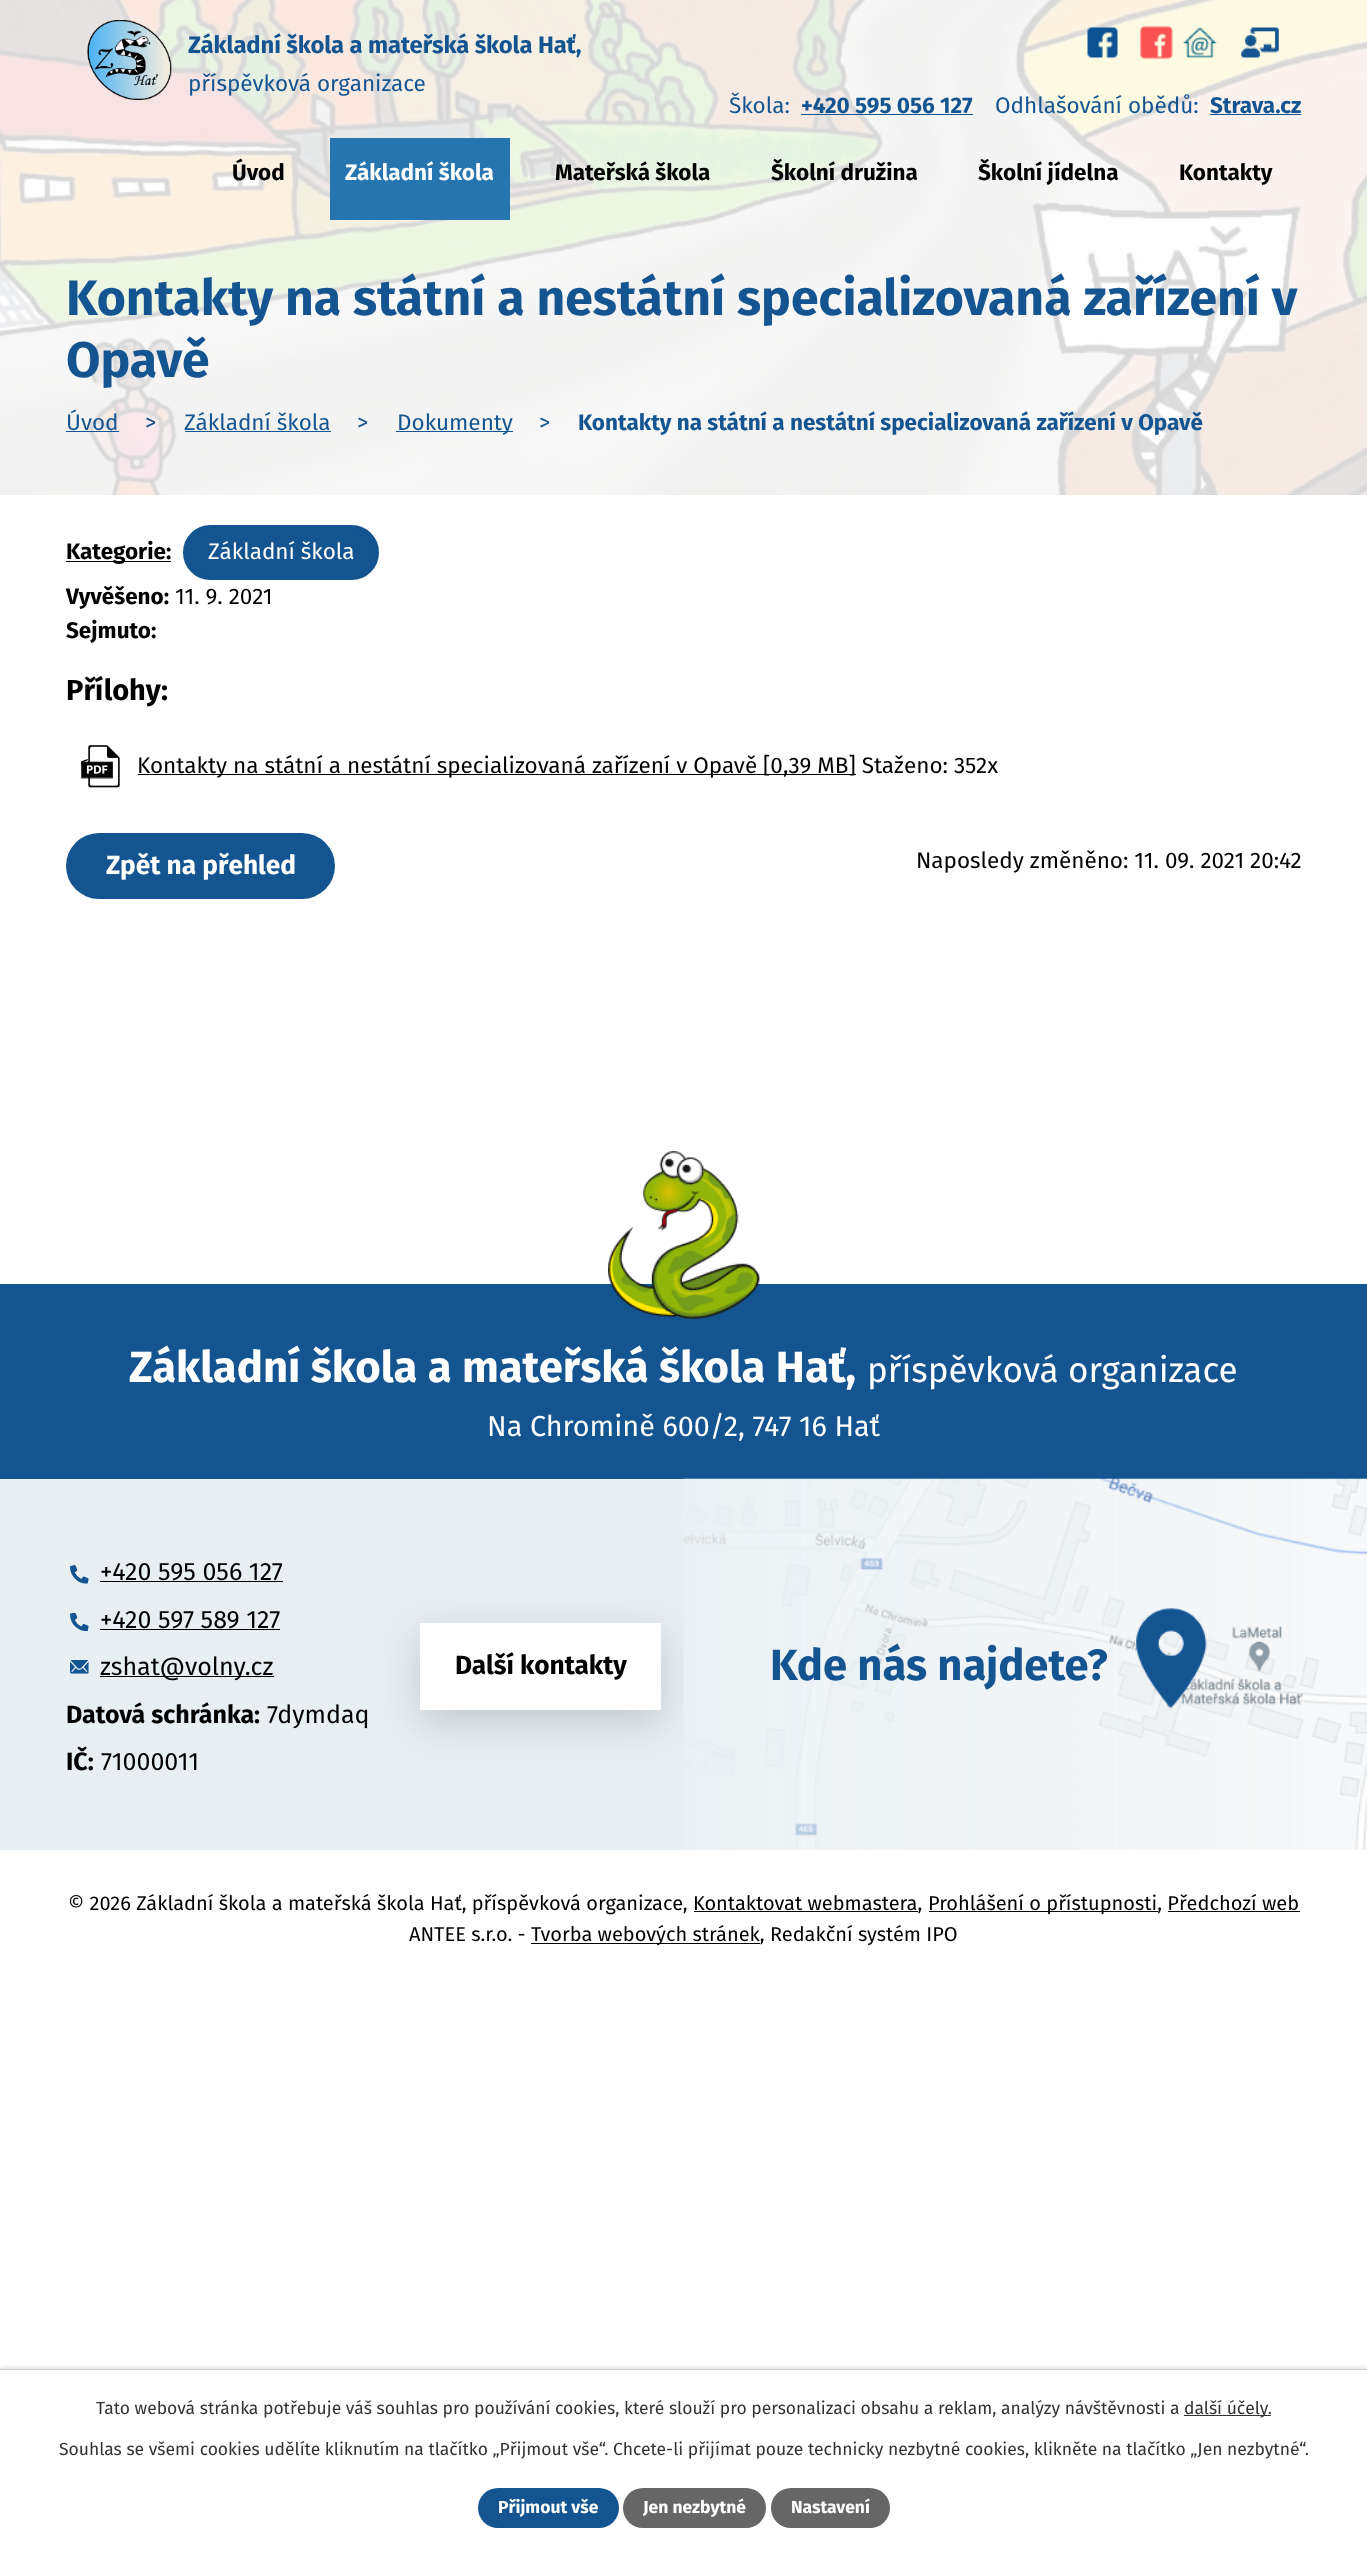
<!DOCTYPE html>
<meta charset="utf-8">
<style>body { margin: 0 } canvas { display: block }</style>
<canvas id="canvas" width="1367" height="2551"></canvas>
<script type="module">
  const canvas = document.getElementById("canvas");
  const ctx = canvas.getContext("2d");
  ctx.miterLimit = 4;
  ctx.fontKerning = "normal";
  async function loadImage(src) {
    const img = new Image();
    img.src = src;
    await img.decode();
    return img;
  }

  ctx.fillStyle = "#ffffff";
  ctx.fillRect(0, 0, 1367, 2551);
  ctx.drawImage(await loadImage("img6.png"), 0, 0, 1367, 495);
  ctx.drawImage(await loadImage("img1.png"), 87, 20, 85, 80);
  ctx.letterSpacing = "-0.1px";
  ctx.font = "bold 23.8px Fira Sans";
  ctx.fillStyle = "#135491";
  ctx.fillText("Základní škola a mateřská škola Hať,", 188, 53);
  ctx.letterSpacing = "0px";
  ctx.font = "22.5px Fira Sans";
  ctx.fillText("příspěvková organizace", 188, 91);
  ctx.drawImage(await loadImage("img2.png"), 1087, 27, 31, 31);
  ctx.drawImage(await loadImage("img3.png"), 1139, 26, 34, 33);
  ctx.drawImage(await loadImage("img4.png"), 1183, 27, 34, 31);
  ctx.drawImage(await loadImage("img5.png"), 1241, 27, 38, 31);
  ctx.fillText("Škola:", 729, 113);
  ctx.font = "bold 22.5px Fira Sans";
  ctx.fillText("+420 595 056 127", 801, 113);
  ctx.fillRect(801, 114, 172, 1);
  ctx.font = "22.5px Fira Sans";
  ctx.fillText("Odhlašování obědů:", 995, 113);
  ctx.font = "bold 22.5px Fira Sans";
  ctx.fillText("Strava.cz", 1210, 113);
  ctx.fillRect(1210, 114, 91, 1);
  ctx.fillStyle = "#000000";
  ctx.fillText("Úvod", 232, 180);
  ctx.fillStyle = "#2675af";
  ctx.fillRect(330, 138, 180, 82);
  ctx.fillStyle = "#ffffff";
  ctx.fillText("Základní škola", 345, 180);
  ctx.fillStyle = "#000000";
  ctx.fillText("Mateřská škola", 555, 180);
  ctx.fillText("Školní družina", 771, 180);
  ctx.fillText("Školní jídelna", 978, 180);
  ctx.fillText("Kontakty", 1179, 180);
  ctx.font = "bold 49.95px Fira Sans";
  ctx.fillStyle = "#135491";
  ctx.fillText("Kontakty na státní a nestátní specializovaná zařízení v", 66, 315);
  ctx.fillText("Opavě", 66, 377);
  ctx.font = "22.5px Fira Sans";
  ctx.fillText("Úvod", 66, 430);
  ctx.fillRect(66, 431, 53, 1);
  ctx.fillText(">", 145, 430);
  ctx.fillText("Základní škola", 184, 430);
  ctx.fillRect(185, 431, 146, 1);
  ctx.fillText(">", 357, 430);
  ctx.fillRect(396, 431, 117, 1);
  ctx.fillText("Dokumenty", 397, 430);
  ctx.fillText(">", 539, 430);
  ctx.font = "bold 22.5px Fira Sans";
  ctx.fillText("Kontakty na státní a nestátní specializovaná zařízení v Opavě", 578, 430);
  ctx.fillStyle = "#000000";
  ctx.fillRect(66, 561, 105, 1);
  ctx.fillText("Kategorie:", 66, 559);
  ctx.fillStyle = "#135491";
  ctx.beginPath();
  ctx.roundRect(184.5, 526.5, 193, 52, 26);
  ctx.fill();
  ctx.strokeStyle = "#135491";
  ctx.lineWidth = 3;
  ctx.stroke();
  ctx.font = "22.5px Fira Sans";
  ctx.fillStyle = "#ffffff";
  ctx.fillText("Základní škola", 208, 559);
  ctx.font = "bold 22.5px Fira Sans";
  ctx.fillStyle = "#000000";
  ctx.fillText("Vyvěšeno:", 66, 604);
  ctx.font = "22.5px Fira Sans";
  ctx.fillText("11. 9. 2021", 175, 604);
  ctx.font = "bold 22.5px Fira Sans";
  ctx.fillText("Sejmuto:", 66, 638);
  ctx.font = "bold 29px Fira Sans";
  ctx.fillText("Přílohy:", 66, 700);
  ctx.drawImage(await loadImage("img7.png"), 81, 745, 39, 43);
  ctx.fillRect(138, 774, 718, 1);
  ctx.font = "22.5px Fira Sans";
  ctx.fillText("Kontakty na státní a nestátní specializovaná zařízení v Opavě [0,39 MB] Staženo: 352x", 137, 773);
  ctx.fillStyle = "#135491";
  ctx.beginPath();
  ctx.roundRect(66, 833, 269, 66, 33);
  ctx.fill();
  ctx.font = "bold 26.25px Fira Sans";
  ctx.fillStyle = "#ffffff";
  ctx.fillText("Zpět na přehled", 106, 874);
  ctx.font = "22.5px Fira Sans";
  ctx.fillStyle = "#000000";
  ctx.fillText("Naposledy změněno: 11. 09. 2021 20:42", 916, 868);
  ctx.fillStyle = "#e8eff3";
  ctx.fillRect(0, 1479, 684, 371);
  ctx.fillStyle = "#135491";
  ctx.fillRect(0, 1284, 1367, 195);
  ctx.drawImage(await loadImage("img8.png"), 608, 1151, 152, 168);
  ctx.font = "bold 43.6px Fira Sans";
  ctx.fillStyle = "#ffffff";
  ctx.fillText("Základní škola a mateřská škola Hať,", 129, 1382);
  ctx.font = "35.1px Fira Sans";
  ctx.fillText("příspěvková organizace", 867, 1382);
  ctx.font = "28.75px Fira Sans";
  ctx.fillText("Na Chromině 600/2, 747 16 Hať", 487, 1436);
  ctx.drawImage(await loadImage("img9.png"), 70, 1565, 19, 19);
  ctx.font = "25px Fira Sans";
  ctx.fillStyle = "#000000";
  ctx.fillText("+420 595 056 127", 100, 1580);
  ctx.fillRect(100, 1581, 183, 1);
  ctx.drawImage(await loadImage("img10.png"), 70, 1613, 19, 18);
  ctx.fillText("+420 597 589 127", 100, 1628);
  ctx.fillRect(100, 1629, 180, 1);
  ctx.drawImage(await loadImage("img11.png"), 70, 1660, 19, 14);
  ctx.fillRect(100, 1676, 174, 1);
  ctx.fillText("zshat@volny.cz", 100, 1675);
  ctx.font = "bold 25px Fira Sans";
  ctx.fillText("Datová schránka:", 66, 1723);
  ctx.font = "25px Fira Sans";
  ctx.fillText("7dymdaq", 267, 1723);
  ctx.font = "bold 25px Fira Sans";
  ctx.fillText("IČ:", 66, 1770);
  ctx.font = "25px Fira Sans";
  ctx.fillText("71000011", 101, 1770);
  ctx.fillStyle = "rgba(0, 0, 0, 0.16)";
  ctx.filter = "blur(19px)";
  ctx.beginPath();
  ctx.rect(420, 1635, 241, 88);
  ctx.fill();
  ctx.filter = "none";
  ctx.fillStyle = "#ffffff";
  ctx.fillRect(420, 1623, 241, 87);
  ctx.font = "bold 26.25px Fira Sans";
  ctx.fillStyle = "#000000";
  ctx.fillText("Další kontakty", 455, 1674);
  ctx.drawImage(await loadImage("img12.png"), 683, 1478, 684, 372);
  ctx.font = "bold 43.6px Fira Sans";
  ctx.fillStyle = "#135491";
  ctx.fillText("Kde nás najdete?", 770, 1680);
  ctx.font = "20px Fira Sans";
  ctx.fillStyle = "#000000";
  ctx.fillText("© 2026 Základní škola a mateřská škola Hať, příspěvková organizace, Kontaktovat webmastera,", 68, 1910);
  ctx.fillRect(929, 1911, 229, 1);
  ctx.fillText("Prohlášení o přístupnosti, Předchozí web", 928, 1910);
  ctx.fillRect(694, 1911, 224, 1);
  ctx.fillRect(1168, 1911, 132, 1);
  ctx.fillText("ANTEE s.r.o. -", 409, 1941);
  ctx.fillRect(531, 1943, 229, 1);
  ctx.fillText("Tvorba webových stránek, Redakční systém IPO", 531, 1941);
  ctx.save();
  ctx.beginPath();
  ctx.rect(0, 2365, 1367, 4);
  ctx.clip();
  ctx.fillStyle = "rgba(0, 0, 0, 0.2)";
  ctx.filter = "blur(3px)";
  ctx.beginPath();
  ctx.rect(0, 2369, 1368, 182);
  ctx.fill();
  ctx.filter = "none";
  ctx.restore();
  ctx.fillStyle = "#cccccc";
  ctx.fillRect(0, 2369, 1367, 1);
  ctx.font = "17.5px Fira Sans";
  ctx.fillStyle = "#333333";
  ctx.fillText("Tato webová stránka potřebuje váš souhlas pro používání cookies, které slouží pro personalizaci obsahu a reklam, analýzy návštěvnosti a", 96, 2414);
  ctx.fillRect(1184, 2415, 87, 1);
  ctx.fillText("další účely.", 1184, 2414);
  ctx.fillText("Souhlas se všemi cookies udělíte kliknutím na tlačítko „Přijmout vše“. Chcete-li přijímat pouze technicky nezbytné cookies, klikněte na tlačítko „Jen nezbytné“.", 59, 2455);
  ctx.fillStyle = "#135491";
  ctx.beginPath();
  ctx.roundRect(478, 2488, 141, 40, 20);
  ctx.fill();
  ctx.font = "bold 17.5px Fira Sans";
  ctx.fillStyle = "#ffffff";
  ctx.fillText("Přijmout vše", 498, 2513);
  ctx.fillStyle = "#666666";
  ctx.beginPath();
  ctx.roundRect(623, 2488, 143, 40, 20);
  ctx.fill();
  ctx.fillStyle = "#ffffff";
  ctx.fillText("Jen nezbytné", 643, 2513);
  ctx.fillStyle = "#666666";
  ctx.beginPath();
  ctx.roundRect(771, 2488, 119, 40, 20);
  ctx.fill();
  ctx.fillStyle = "#ffffff";
  ctx.fillText("Nastavení", 791, 2513);
</script>
